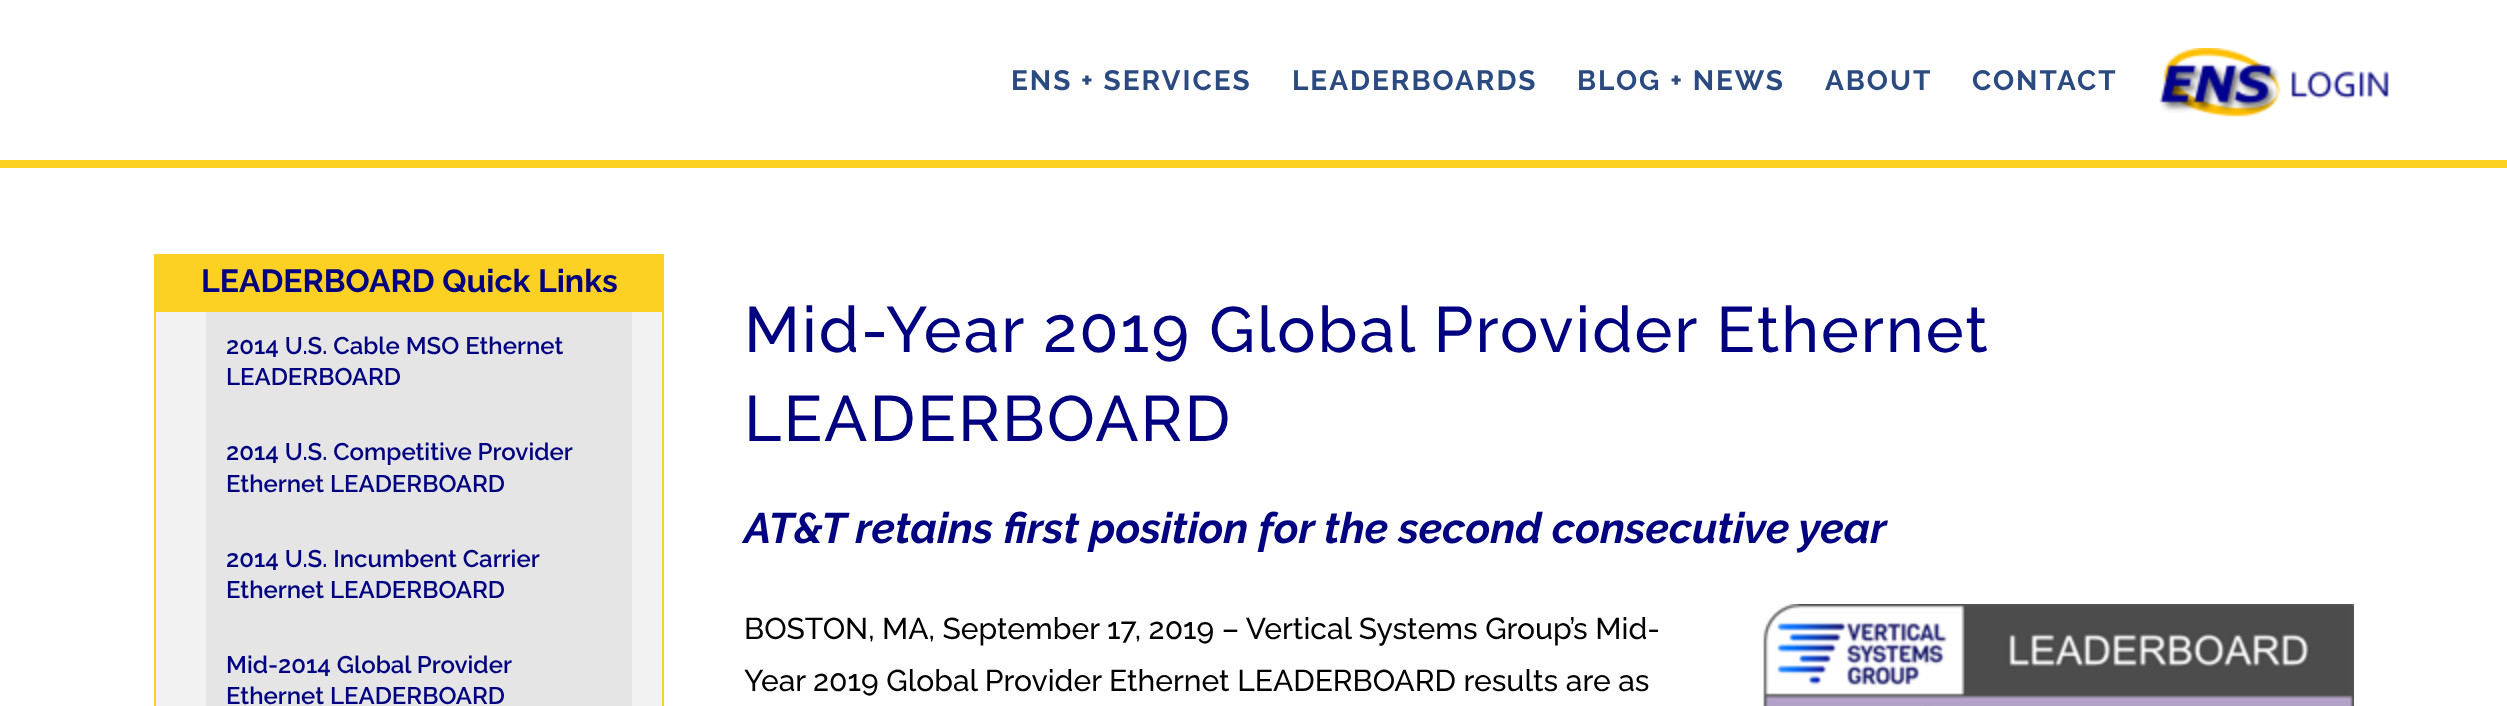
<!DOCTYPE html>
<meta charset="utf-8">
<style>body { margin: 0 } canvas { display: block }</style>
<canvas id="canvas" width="2507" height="706"></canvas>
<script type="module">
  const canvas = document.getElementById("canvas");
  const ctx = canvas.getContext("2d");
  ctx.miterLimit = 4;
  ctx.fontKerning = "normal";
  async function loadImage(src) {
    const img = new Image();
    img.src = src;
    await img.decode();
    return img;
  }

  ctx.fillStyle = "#ffffff";
  ctx.fillRect(0, 0, 2507, 706);
  ctx.fillStyle = "#fcd123";
  ctx.fillRect(0, 160, 2507, 8);
  ctx.letterSpacing = "2px";
  ctx.font = "bold 28px Raleway";
  ctx.fillStyle = "#2b4b80";
  ctx.fillText("ENS + SERVICES", 1011, 90);
  ctx.fillText("LEADERBOARDS", 1292, 90);
  ctx.fillText("BLOG + NEWS", 1577, 90);
  ctx.fillText("ABOUT", 1825, 90);
  ctx.fillText("CONTACT", 1972, 90);
  ctx.drawImage(await loadImage("img1.png"), 2159, 48, 230, 69);
  ctx.fillStyle = "#fcd123";
  ctx.fillRect(154, 254, 510, 56);
  ctx.letterSpacing = "0px";
  ctx.font = "bold 32px Raleway";
  ctx.fillStyle = "#000080";
  ctx.fillText("LEADERBOARD Quick Links", 201, 292);
  ctx.fillStyle = "#f2f2f2";
  ctx.beginPath();
  ctx.rect(155, 311, 508, 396);
  ctx.fill();
  ctx.strokeStyle = "#fcd123";
  ctx.lineWidth = 2;
  ctx.stroke();
  ctx.fillStyle = "#e5e5e5";
  ctx.fillRect(206, 312, 426, 394);
  ctx.font = "600 24px Raleway";
  ctx.fillStyle = "#000080";
  ctx.fillText("2014 U.S. Cable MSO Ethernet", 226, 354);
  ctx.fillText("LEADERBOARD", 226, 385);
  ctx.fillText("2014 U.S. Competitive Provider", 226, 460);
  ctx.fillText("Ethernet LEADERBOARD", 226, 492);
  ctx.fillText("2014 U.S. Incumbent Carrier", 226, 567);
  ctx.fillText("Ethernet LEADERBOARD", 226, 598);
  ctx.fillText("Mid-2014 Global Provider", 226, 673);
  ctx.fillText("Ethernet LEADERBOARD", 226, 704);
  ctx.letterSpacing = "2px";
  ctx.font = "500 64px Raleway";
  ctx.fillText("Mid-Year 2019 Global Provider Ethernet", 744, 352);
  ctx.fillText("LEADERBOARD", 744, 441);
  ctx.letterSpacing = "0px";
  ctx.font = "italic bold 42.7px Raleway";
  ctx.fillText("AT&T retains first position for the second consecutive year", 744, 543);
  ctx.font = "500 30px Raleway";
  ctx.fillStyle = "#000000";
  ctx.fillText("BOSTON, MA, September 17, 2019 – Vertical Systems Group’s Mid-", 744, 639);
  ctx.fillText("Year 2019 Global Provider Ethernet LEADERBOARD results are as", 744, 691);
  ctx.drawImage(await loadImage("img2.png"), 1762, 604, 592, 102);
</script>
